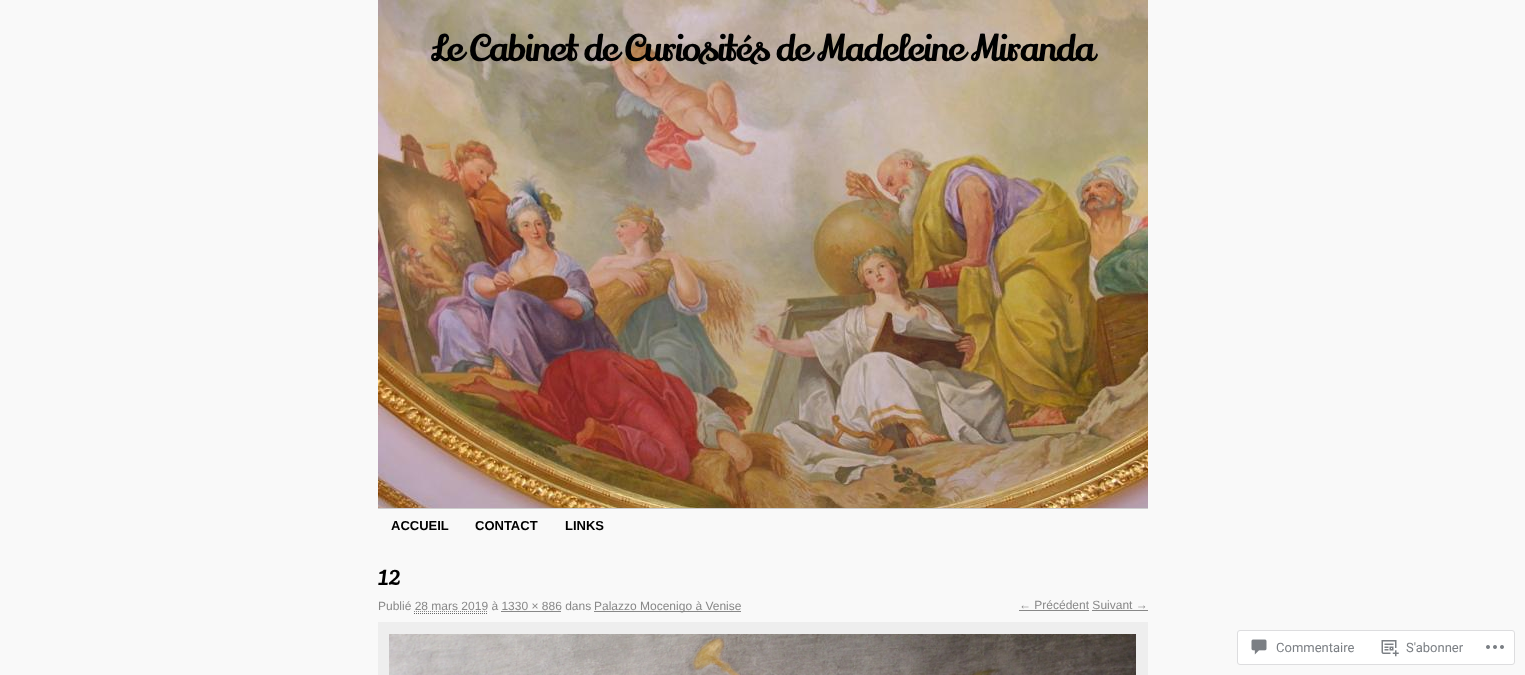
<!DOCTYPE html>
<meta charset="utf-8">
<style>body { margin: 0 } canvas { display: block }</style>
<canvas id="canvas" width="1525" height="675"></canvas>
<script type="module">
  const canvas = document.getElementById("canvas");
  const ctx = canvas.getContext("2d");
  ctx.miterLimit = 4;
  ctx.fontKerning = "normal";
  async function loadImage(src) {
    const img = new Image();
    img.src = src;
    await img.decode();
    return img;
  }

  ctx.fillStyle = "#f9f9f9";
  ctx.fillRect(0, 0, 1525, 675);
  ctx.drawImage(await loadImage("img1.png"), 378, 0, 770, 508);
  ctx.letterSpacing = "-1.1px";
  ctx.font = "36px Lily Script One";
  ctx.fillStyle = "#000000";
  ctx.fillText("Le Cabinet de Curiosités de Madeleine Miranda", 431, 61);
  ctx.fillStyle = "#cccccc";
  ctx.fillRect(378, 508, 770, 1);
  ctx.letterSpacing = "0px";
  ctx.font = "bold 13px Liberation Sans";
  ctx.fillStyle = "#000000";
  ctx.fillText("ACCUEIL", 391, 530);
  ctx.fillText("CONTACT", 475, 530);
  ctx.fillText("LINKS", 565, 530);
  ctx.font = "20px Lily Script One";
  ctx.fillText("12", 378, 585);
  ctx.font = "12px Liberation Sans";
  ctx.fillStyle = "#888888";
  ctx.fillText("Publié 28 mars 2019 à 1330 × 886 dans", 378, 610);
  ctx.fillRect(594, 611, 147, 1);
  ctx.fillText("Palazzo Mocenigo à Venise", 594, 610);
  ctx.beginPath();
  ctx.moveTo(414, 611.5);
  ctx.lineTo(487.5, 611.5);
  ctx.strokeStyle = "#888888";
  ctx.setLineDash([1, 1]);
  ctx.stroke();
  ctx.fillRect(501, 611, 60, 1);
  ctx.beginPath();
  ctx.moveTo(414, 613.5);
  ctx.lineTo(488, 613.5);
  ctx.strokeStyle = "#666666";
  ctx.stroke();
  ctx.fillText("← Précédent Suivant →", 1019, 609);
  ctx.fillRect(1019, 610, 70, 1);
  ctx.fillRect(1092, 610, 56, 1);
  ctx.fillStyle = "#eeeeee";
  ctx.fillRect(378, 622, 770, 53);
  ctx.drawImage(await loadImage("img2.png"), 389, 634, 747, 41);
  ctx.fillStyle = "#ffffff";
  ctx.beginPath();
  ctx.roundRect(1237.5, 630.5, 277, 34, 2.5);
  ctx.fill();
  ctx.strokeStyle = "#dddddf";
  ctx.setLineDash([]);
  ctx.stroke();
  ctx.drawImage(await loadImage("img3.png"), 1251, 639, 16, 16);
  ctx.font = "13px Roboto";
  ctx.fillStyle = "#7b7f84";
  ctx.fillText("Commentaire", 1276, 652);
  ctx.drawImage(await loadImage("img4.png"), 1381, 640, 18, 17);
  ctx.fillText("S'abonner", 1406, 652);
  ctx.drawImage(await loadImage("img5.png"), 1486, 645, 18, 4);
</script>
